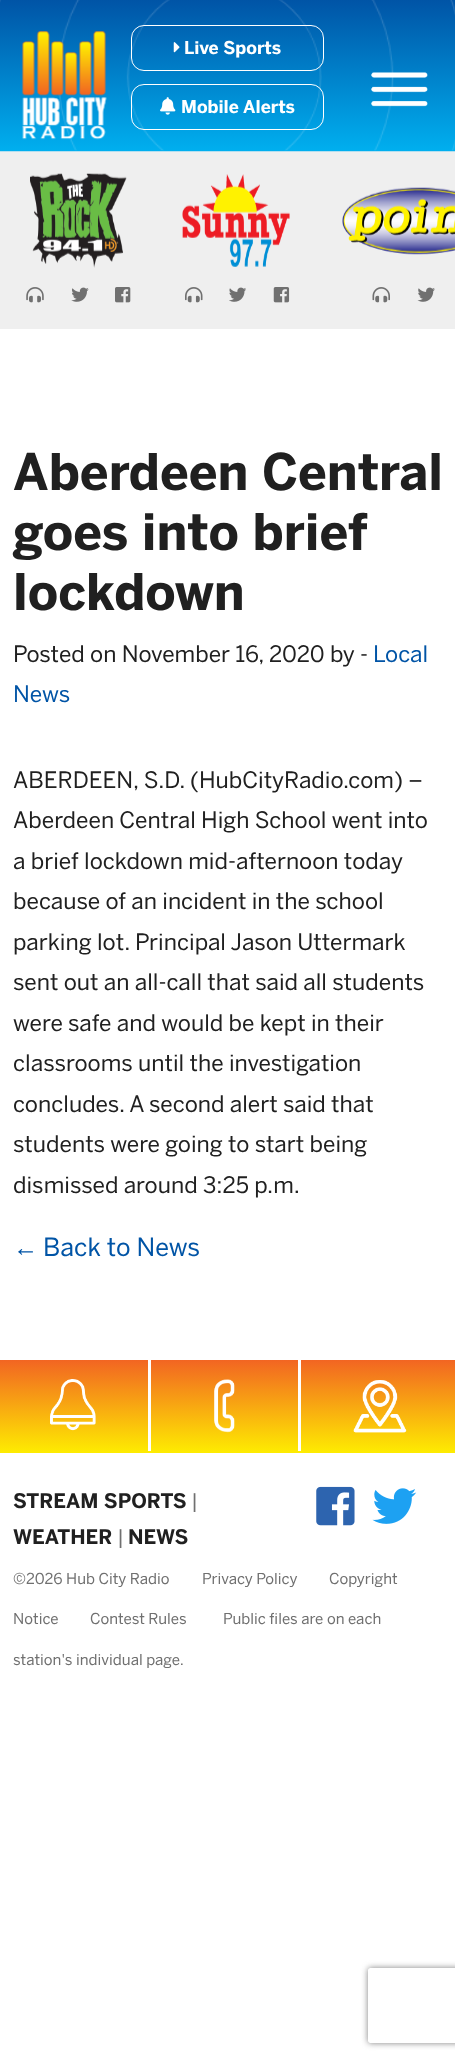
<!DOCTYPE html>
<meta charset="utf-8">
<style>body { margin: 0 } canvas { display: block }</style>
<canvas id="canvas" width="455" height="2059"></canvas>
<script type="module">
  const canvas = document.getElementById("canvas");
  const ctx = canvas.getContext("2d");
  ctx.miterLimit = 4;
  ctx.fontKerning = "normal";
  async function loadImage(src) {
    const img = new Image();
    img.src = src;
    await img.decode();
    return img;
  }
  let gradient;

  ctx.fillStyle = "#ffffff";
  ctx.fillRect(0, 0, 455, 2059);
  ctx.fillStyle = "#efefef";
  ctx.fillRect(0, 151, 455, 178);
  ctx.drawImage(await loadImage("img1.png"), 0, 0, 455, 152);
  ctx.drawImage(await loadImage("img2.png"), 22, 31, 85, 109);
  ctx.beginPath();
  ctx.roundRect(131.5, 25.5, 192, 45, 12.5);
  ctx.strokeStyle = "#ffffff";
  ctx.stroke();
  ctx.drawImage(await loadImage("img3.png"), 173, 42, 7, 11);
  ctx.font = "bold 17.5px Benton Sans";
  ctx.fillStyle = "#ffffff";
  ctx.fillText("Live Sports", 184, 54);
  ctx.beginPath();
  ctx.roundRect(131.5, 84.5, 192, 45, 12.5);
  ctx.stroke();
  ctx.drawImage(await loadImage("img4.png"), 160, 97, 16, 18);
  ctx.fillText("Mobile Alerts", 181, 113);
  ctx.drawImage(await loadImage("img5.png"), 371, 72, 57, 35);
  ctx.drawImage(await loadImage("img6.png"), 30, 173, 97, 95);
  ctx.drawImage(await loadImage("img7.png"), 26, 287, 18, 16);
  ctx.drawImage(await loadImage("img8.png"), 71, 287, 18, 15);
  ctx.drawImage(await loadImage("img9.png"), 115, 287, 16, 16);
  ctx.drawImage(await loadImage("img10.png"), 182, 174, 108, 93);
  ctx.drawImage(await loadImage("img11.png"), 185, 287, 18, 16);
  ctx.drawImage(await loadImage("img12.png"), 229, 287, 17, 15);
  ctx.drawImage(await loadImage("img13.png"), 273, 287, 17, 16);
  ctx.drawImage(await loadImage("img14.png"), 342, 187, 113, 68);
  ctx.drawImage(await loadImage("img15.png"), 372, 287, 18, 16);
  ctx.drawImage(await loadImage("img16.png"), 417, 287, 18, 15);
  ctx.font = "bold 50px Benton Sans";
  ctx.fillStyle = "#202020";
  ctx.fillText("Aberdeen Central", 13, 490);
  ctx.fillText("goes into brief", 13, 550);
  ctx.fillText("lockdown", 13, 610);
  ctx.font = "22.5px Benton Sans";
  ctx.fillText("Posted on November 16, 2020 by -", 13, 662);
  ctx.fillStyle = "#0054a6";
  ctx.fillText("Local", 373, 662);
  ctx.fillText("News", 13, 702);
  ctx.fillStyle = "#202020";
  ctx.fillText("ABERDEEN, S.D. (HubCityRadio.com) –", 13, 788);
  ctx.fillText("Aberdeen Central High School went into", 13, 828);
  ctx.fillText("a brief lockdown mid-afternoon today", 13, 869);
  ctx.fillText("because of an incident in the school", 13, 909);
  ctx.fillText("parking lot. Principal Jason Uttermark", 13, 950);
  ctx.fillText("sent out an all-call that said all students", 13, 990);
  ctx.fillText("were safe and would be kept in their", 13, 1031);
  ctx.fillText("classrooms until the investigation", 13, 1071);
  ctx.fillText("concludes. A second alert said that", 13, 1112);
  ctx.fillText("students were going to start being", 13, 1152);
  ctx.fillText("dismissed around 3:25 p.m.", 13, 1193);
  ctx.font = "25px Liberation Sans";
  ctx.fillStyle = "#0054a6";
  ctx.fillText("←", 13, 1256);
  ctx.font = "25px Benton Sans";
  ctx.fillText("Back to News", 43, 1256);
  gradient = ctx.createLinearGradient(228, 1453, 228, 1360);
  gradient.addColorStop(0, "#feec01");
  gradient.addColorStop(1, "#f26522");
  ctx.fillStyle = gradient;
  ctx.fillRect(0, 1360, 455, 93);
  ctx.fillStyle = "#ffffff";
  ctx.fillRect(148, 1360, 3, 91);
  ctx.drawImage(await loadImage("img17.png"), 50, 1379, 46, 52);
  ctx.fillRect(298, 1360, 3, 91);
  ctx.drawImage(await loadImage("img18.png"), 214, 1379, 21, 54);
  ctx.drawImage(await loadImage("img19.png"), 353, 1380, 54, 53);
  ctx.font = "bold 20px Benton Sans";
  ctx.fillStyle = "#202020";
  ctx.fillText("STREAM SPORTS", 13, 1508);
  ctx.font = "20px Benton Sans";
  ctx.fillStyle = "#707070";
  ctx.fillText("|", 191, 1508);
  ctx.font = "bold 20px Benton Sans";
  ctx.fillStyle = "#202020";
  ctx.fillText("WEATHER", 13, 1544);
  ctx.font = "20px Benton Sans";
  ctx.fillStyle = "#707070";
  ctx.fillText("|", 117, 1544);
  ctx.font = "bold 20px Benton Sans";
  ctx.fillStyle = "#202020";
  ctx.fillText("NEWS", 128, 1544);
  ctx.drawImage(await loadImage("img20.png"), 316, 1486, 39, 40);
  ctx.drawImage(await loadImage("img21.png"), 372, 1488, 45, 36);
  ctx.font = "15px Benton Sans";
  ctx.fillStyle = "#707070";
  ctx.fillText("©2026 Hub City Radio", 13, 1584);
  ctx.fillText("Privacy Policy", 202, 1584);
  ctx.fillText("Copyright", 329, 1584);
  ctx.fillText("Notice", 13, 1624);
  ctx.fillText("Contest Rules", 90, 1624);
  ctx.fillText("Public files are on each", 223, 1624);
  ctx.fillText("station's individual page.", 13, 1665);
  ctx.save();
  ctx.beginPath();
  ctx.moveTo(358, 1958);
  ctx.lineTo(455, 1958);
  ctx.lineTo(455, 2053);
  ctx.lineTo(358, 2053);
  ctx.closePath();
  ctx.moveTo(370.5, 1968);
  ctx.lineTo(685.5, 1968);
  ctx.bezierCurveTo(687, 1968, 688, 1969, 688, 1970.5);
  ctx.lineTo(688, 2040.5);
  ctx.bezierCurveTo(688, 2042, 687, 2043, 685.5, 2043);
  ctx.lineTo(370.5, 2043);
  ctx.bezierCurveTo(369, 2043, 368, 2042, 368, 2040.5);
  ctx.lineTo(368, 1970.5);
  ctx.bezierCurveTo(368, 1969, 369, 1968, 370.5, 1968);
  ctx.closePath();
  ctx.clip("evenodd");
  ctx.fillStyle = "#808080";
  ctx.filter = "blur(3px)";
  ctx.beginPath();
  ctx.roundRect(368, 1968, 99, 75, 2.5);
  ctx.fill();
  ctx.filter = "none";
  ctx.restore();
</script>
